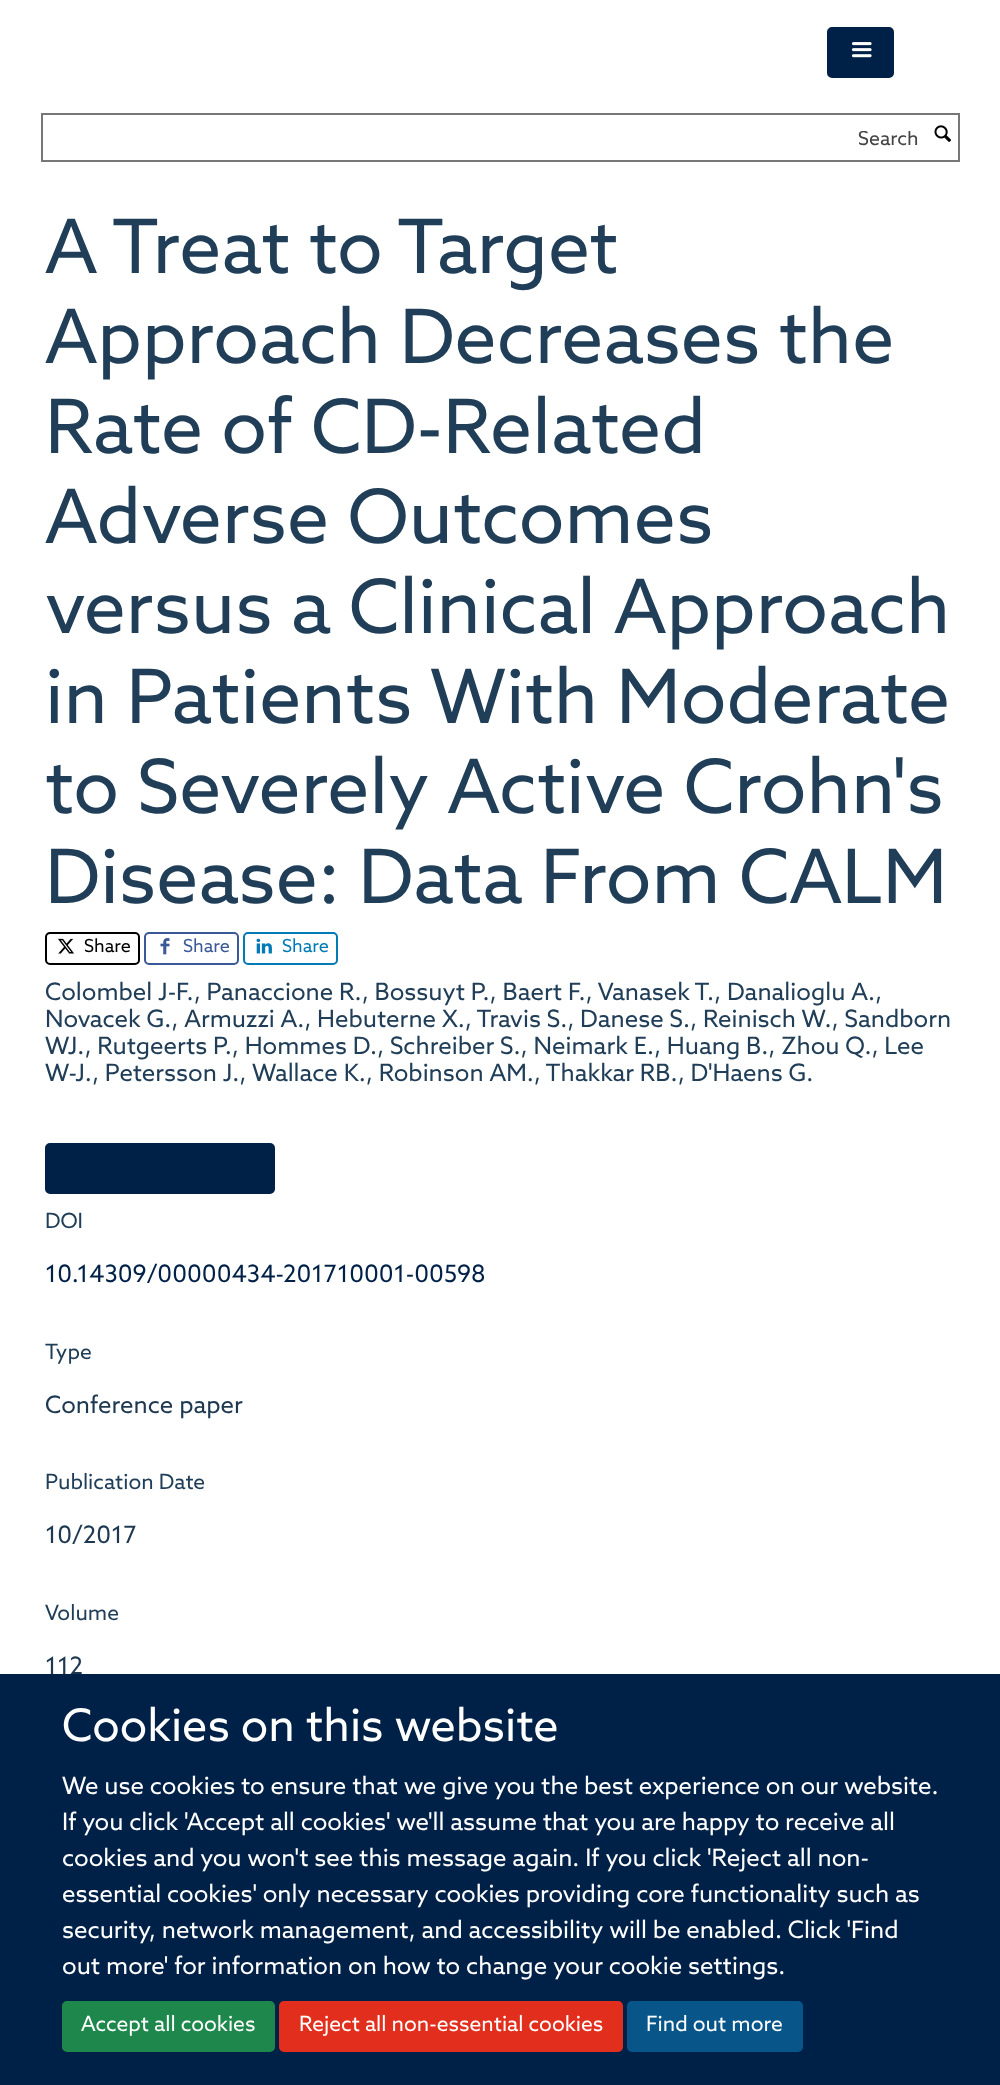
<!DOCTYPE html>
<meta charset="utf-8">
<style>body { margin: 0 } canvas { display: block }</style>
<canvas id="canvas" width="1000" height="2085"></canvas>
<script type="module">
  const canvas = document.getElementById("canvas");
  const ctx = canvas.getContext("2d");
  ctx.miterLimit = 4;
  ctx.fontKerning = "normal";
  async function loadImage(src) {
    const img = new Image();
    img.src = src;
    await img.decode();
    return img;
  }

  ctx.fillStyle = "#ffffff";
  ctx.fillRect(0, 0, 1000, 2085);
  ctx.fillStyle = "#002147";
  ctx.beginPath();
  ctx.roundRect(828, 28, 65, 49, 4);
  ctx.fill();
  ctx.strokeStyle = "#002147";
  ctx.lineWidth = 2;
  ctx.stroke();
  ctx.drawImage(await loadImage("img1.png"), 851, 42, 21, 16);
  ctx.strokeStyle = "#777777";
  ctx.strokeRect(42, 114, 917, 47);
  ctx.save();
  ctx.beginPath();
  ctx.rect(51, 131, 869, 19);
  ctx.clip();
  ctx.font = "19.5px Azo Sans";
  ctx.fillStyle = "#444444";
  ctx.fillText("Search", 858, 145);
  ctx.restore();
  ctx.drawImage(await loadImage("img2.png"), 934, 125, 17, 17);
  ctx.font = "75px Azo Sans";
  ctx.fillStyle = "#203e58";
  ctx.fillText("A Treat to Target", 45, 273);
  ctx.fillText("Approach Decreases the", 45, 363);
  ctx.fillText("Rate of CD-Related", 45, 453);
  ctx.fillText("Adverse Outcomes", 45, 543);
  ctx.fillText("versus a Clinical Approach", 45, 633);
  ctx.fillText("in Patients With Moderate", 45, 723);
  ctx.fillText("to Severely Active Crohn's", 45, 813);
  ctx.fillText("Disease: Data From CALM", 45, 903);
  ctx.beginPath();
  ctx.roundRect(46, 933, 93, 31, 4);
  ctx.strokeStyle = "#000000";
  ctx.stroke();
  ctx.drawImage(await loadImage("img3.png"), 58, 938, 16, 16);
  ctx.font = "18px Azo Sans";
  ctx.fillStyle = "#000000";
  ctx.fillText("Share", 84, 952);
  ctx.beginPath();
  ctx.roundRect(145, 933, 93, 31, 4);
  ctx.strokeStyle = "#3b5998";
  ctx.stroke();
  ctx.drawImage(await loadImage("img4.png"), 160, 938, 10, 17);
  ctx.fillStyle = "#3b5998";
  ctx.fillText("Share", 183, 952);
  ctx.beginPath();
  ctx.roundRect(244, 933, 93, 31, 4);
  ctx.strokeStyle = "#007bb6";
  ctx.stroke();
  ctx.drawImage(await loadImage("img5.png"), 256, 938, 16, 16);
  ctx.fillStyle = "#007bb6";
  ctx.fillText("Share", 282, 952);
  ctx.font = "24px Azo Sans";
  ctx.fillStyle = "#203e58";
  ctx.fillText("Colombel J-F., Panaccione R., Bossuyt P., Baert F., Vanasek T., Danalioglu A.,", 45, 1000);
  ctx.fillText("Novacek G., Armuzzi A., Hebuterne X., Travis S., Danese S., Reinisch W., Sandborn", 45, 1027);
  ctx.fillText("WJ., Rutgeerts P., Hommes D., Schreiber S., Neimark E., Huang B., Zhou Q., Lee", 45, 1054);
  ctx.fillText("W-J., Petersson J., Wallace K., Robinson AM., Thakkar RB., D'Haens G.", 45, 1081);
  ctx.fillStyle = "#002147";
  ctx.beginPath();
  ctx.roundRect(46, 1144, 228, 49, 4);
  ctx.fill();
  ctx.strokeStyle = "#002147";
  ctx.stroke();
  ctx.font = "21px Azo Sans";
  ctx.fillStyle = "#203e58";
  ctx.fillText("DOI", 45, 1228);
  ctx.font = "24px Azo Sans";
  ctx.fillStyle = "#002147";
  ctx.fillText("10.14309/00000434-201710001-00598", 45, 1282);
  ctx.font = "21px Azo Sans";
  ctx.fillStyle = "#203e58";
  ctx.fillText("Type", 45, 1359);
  ctx.font = "24px Azo Sans";
  ctx.fillStyle = "#1d3850";
  ctx.fillText("Conference paper", 45, 1413);
  ctx.font = "21px Azo Sans";
  ctx.fillStyle = "#203e58";
  ctx.fillText("Publication Date", 45, 1489);
  ctx.font = "24px Azo Sans";
  ctx.fillStyle = "#1d3850";
  ctx.fillText("10/2017", 45, 1543);
  ctx.font = "21px Azo Sans";
  ctx.fillStyle = "#203e58";
  ctx.fillText("Volume", 45, 1620);
  ctx.font = "24px Azo Sans";
  ctx.fillStyle = "#1d3850";
  ctx.fillText("112", 45, 1674);
  ctx.fillStyle = "#002147";
  ctx.fillRect(0, 1674, 1000, 411);
  ctx.font = "45px Azo Sans";
  ctx.fillStyle = "#ffffff";
  ctx.fillText("Cookies on this website", 62, 1741);
  ctx.font = "24px Azo Sans";
  ctx.fillText("We use cookies to ensure that we give you the best experience on our website.", 62, 1794);
  ctx.fillText("If you click 'Accept all cookies' we'll assume that you are happy to receive all", 62, 1830);
  ctx.fillText("cookies and you won't see this message again. If you click 'Reject all non-", 62, 1866);
  ctx.fillText("essential cookies' only necessary cookies providing core functionality such as", 62, 1902);
  ctx.fillText("security, network management, and accessibility will be enabled. Click 'Find", 62, 1938);
  ctx.fillText("out more' for information on how to change your cookie settings.", 62, 1974);
  ctx.fillStyle = "#1e874b";
  ctx.beginPath();
  ctx.roundRect(63, 2002, 211, 49, 4);
  ctx.fill();
  ctx.strokeStyle = "#1e874b";
  ctx.stroke();
  ctx.font = "21px Azo Sans";
  ctx.fillStyle = "#ffffff";
  ctx.fillText("Accept all cookies", 81, 2031);
  ctx.fillStyle = "#e22e1c";
  ctx.beginPath();
  ctx.roundRect(280, 2002, 342, 49, 4);
  ctx.fill();
  ctx.strokeStyle = "#e22e1c";
  ctx.stroke();
  ctx.fillStyle = "#ffffff";
  ctx.fillText("Reject all non-essential cookies", 299, 2031);
  ctx.fillStyle = "#085589";
  ctx.beginPath();
  ctx.roundRect(628, 2002, 174, 49, 4);
  ctx.fill();
  ctx.strokeStyle = "#085589";
  ctx.stroke();
  ctx.fillStyle = "#ffffff";
  ctx.fillText("Find out more", 646, 2031);
</script>
